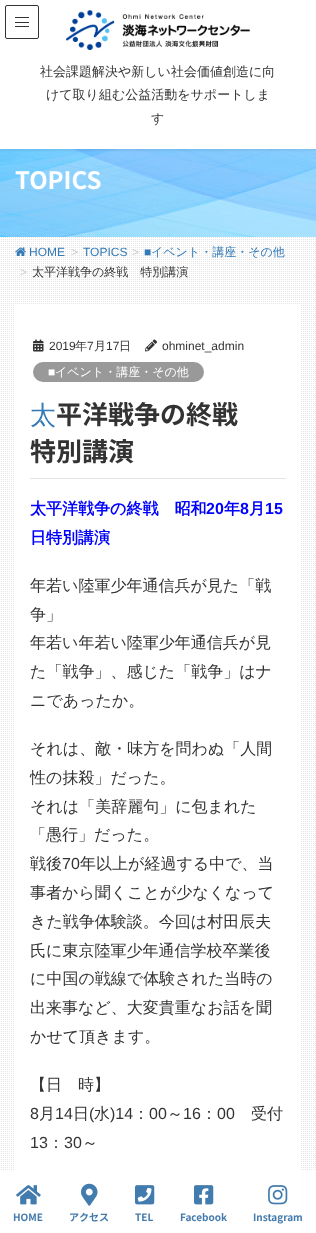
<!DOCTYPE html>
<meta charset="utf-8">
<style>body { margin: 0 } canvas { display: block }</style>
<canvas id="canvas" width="316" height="1233"></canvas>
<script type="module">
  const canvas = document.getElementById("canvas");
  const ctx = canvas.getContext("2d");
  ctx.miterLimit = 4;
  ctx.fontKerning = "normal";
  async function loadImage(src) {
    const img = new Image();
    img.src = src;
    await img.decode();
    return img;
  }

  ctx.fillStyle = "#ffffff";
  ctx.fillRect(0, 0, 316, 1233);
  ctx.drawImage(await loadImage("img1.png"), 1, 237, 315, 995);
  ctx.drawImage(await loadImage("img3.png"), 0, 149, 316, 88);
  ctx.fillStyle = "rgba(0, 0, 0, 0.1)";
  ctx.filter = "blur(1.5px)";
  ctx.beginPath();
  ctx.rect(0, 1, 316, 149);
  ctx.fill();
  ctx.filter = "none";
  ctx.fillStyle = "#ffffff";
  ctx.fillRect(0, 0, 316, 149);
  ctx.fillStyle = "#333333";
  ctx.fillRect(15, 17, 14, 1);
  ctx.fillRect(15, 22, 14, 1);
  ctx.fillRect(15, 26, 14, 1);
  ctx.beginPath();
  ctx.roundRect(5.5, 5.5, 33, 33, 1.5);
  ctx.strokeStyle = "#333333";
  ctx.stroke();
  ctx.drawImage(await loadImage("img2.png"), 66, 10, 184, 40);
  ctx.font = "500 13px WenQuanYi Zen Hei";
  ctx.fillText("社会課題解決や新しい社会価値創造に向", 40, 76);
  ctx.fillText("けて取り組む公益活動をサポートしま", 46, 99);
  ctx.fillText("す", 151, 123);
  ctx.font = "100 24px Noto Sans JP";
  ctx.fillStyle = "#ffffff";
  ctx.fillText("TOPICS", 15, 189);
  ctx.drawImage(await loadImage("img4.png"), 15, 247, 11, 9);
  ctx.font = "12px Liberation Sans";
  ctx.fillStyle = "#337ab7";
  ctx.fillText("HOME", 29, 256);
  ctx.fillStyle = "#cccccc";
  ctx.fillText(">", 71, 256);
  ctx.fillStyle = "#337ab7";
  ctx.fillText("TOPICS", 83, 256);
  ctx.fillStyle = "#cccccc";
  ctx.fillText(">", 132, 256);
  ctx.fillStyle = "#337ab7";
  ctx.fillText("■", 144, 256);
  ctx.font = "500 12px WenQuanYi Zen Hei";
  ctx.fillText("イベント・講座・その他", 151, 256);
  ctx.font = "12px Liberation Sans";
  ctx.fillStyle = "#cccccc";
  ctx.fillText(">", 20, 276);
  ctx.font = "500 12px WenQuanYi Zen Hei";
  ctx.fillStyle = "#333333";
  ctx.fillText("太平洋戦争の終戦　特別講演", 32, 276);
  ctx.fillStyle = "#ffffff";
  ctx.fillRect(15, 305, 285, 927);
  ctx.fillStyle = "#e5e5e5";
  ctx.fillRect(30, 478, 256, 1);
  ctx.drawImage(await loadImage("img5.png"), 33, 339, 11, 13);
  ctx.font = "12px Liberation Sans";
  ctx.fillStyle = "#333333";
  ctx.fillText("2019", 49, 350);
  ctx.font = "500 12px WenQuanYi Zen Hei";
  ctx.fillText("年", 75, 350);
  ctx.font = "12px Liberation Sans";
  ctx.fillText("7", 87, 350);
  ctx.font = "500 12px WenQuanYi Zen Hei";
  ctx.fillText("月", 94, 350);
  ctx.font = "12px Liberation Sans";
  ctx.fillText("17", 106, 350);
  ctx.font = "500 12px WenQuanYi Zen Hei";
  ctx.fillText("日", 119, 350);
  ctx.drawImage(await loadImage("img6.png"), 145, 339, 12, 13);
  ctx.font = "12px Liberation Sans";
  ctx.fillText("ohminet_admin", 162, 350);
  ctx.fillStyle = "#999999";
  ctx.beginPath();
  ctx.roundRect(33, 362, 171, 20, 10);
  ctx.fill();
  ctx.fillStyle = "#ffffff";
  ctx.fillText("■", 48, 376);
  ctx.font = "500 12px WenQuanYi Zen Hei";
  ctx.fillText("イベント・講座・その他", 55, 376);
  ctx.font = "100 26px Noto Sans";
  ctx.fillStyle = "#337ab7";
  ctx.fillText("太", 30, 424);
  ctx.font = "100 26px Noto Sans JP";
  ctx.fillStyle = "#333333";
  ctx.fillText("平洋戦争の終戦", 56, 424);
  ctx.fillText("特別講演", 30, 461);
  ctx.font = "bold 16px WenQuanYi Zen Hei";
  ctx.fillStyle = "#0000ff";
  ctx.fillText("太平洋戦争の終戦　昭和", 30, 514);
  ctx.font = "bold 16px Liberation Sans";
  ctx.fillText("20", 206, 514);
  ctx.font = "bold 16px WenQuanYi Zen Hei";
  ctx.fillText("年", 224, 514);
  ctx.font = "bold 16px Liberation Sans";
  ctx.fillText("8", 240, 514);
  ctx.font = "bold 16px WenQuanYi Zen Hei";
  ctx.fillText("月", 249, 514);
  ctx.font = "bold 16px Liberation Sans";
  ctx.fillText("15", 265, 514);
  ctx.font = "bold 16px WenQuanYi Zen Hei";
  ctx.fillText("日特別講演", 30, 543);
  ctx.font = "500 16px WenQuanYi Zen Hei";
  ctx.fillStyle = "#333333";
  ctx.fillText("年若い陸軍少年通信兵が見た「戦", 30, 591);
  ctx.fillText("争」", 30, 620);
  ctx.fillText("年若い年若い陸軍少年通信兵が見", 30, 648);
  ctx.fillText("た「戦争」、感じた「戦争」はナ", 30, 677);
  ctx.fillText("ニであったか。", 30, 706);
  ctx.fillText("それは、敵・味方を問わぬ「人間", 30, 754);
  ctx.fillText("性の抹殺」だった。", 30, 783);
  ctx.fillText("それは「美辞麗句」に包まれた", 30, 812);
  ctx.fillText("「愚行」だった。", 30, 840);
  ctx.fillText("戦後", 30, 869);
  ctx.font = "16px Liberation Sans";
  ctx.fillText("70", 62, 869);
  ctx.font = "500 16px WenQuanYi Zen Hei";
  ctx.fillText("年以上が経過する中で、当", 80, 869);
  ctx.fillText("事者から聞くことが少なくなって", 30, 898);
  ctx.fillText("きた戦争体験談。今回は村田辰夫", 30, 927);
  ctx.fillText("氏に東京陸軍少年通信学校卒業後", 30, 956);
  ctx.fillText("に中国の戦線で体験された当時の", 30, 984);
  ctx.fillText("出来事など、大変貴重なお話を聞", 30, 1013);
  ctx.fillText("かせて頂きます。", 30, 1042);
  ctx.fillText("【日　時】", 30, 1090);
  ctx.font = "16px Liberation Sans";
  ctx.fillText("8", 30, 1119);
  ctx.font = "500 16px WenQuanYi Zen Hei";
  ctx.fillText("月", 39, 1119);
  ctx.font = "16px Liberation Sans";
  ctx.fillText("14", 55, 1119);
  ctx.font = "500 16px WenQuanYi Zen Hei";
  ctx.fillText("日", 73, 1119);
  ctx.font = "16px Liberation Sans";
  ctx.fillText("(", 89, 1119);
  ctx.font = "500 16px WenQuanYi Zen Hei";
  ctx.fillText("水", 94, 1119);
  ctx.font = "16px Liberation Sans";
  ctx.fillText(")14", 110, 1119);
  ctx.font = "500 16px WenQuanYi Zen Hei";
  ctx.fillText("：", 133, 1119);
  ctx.font = "16px Liberation Sans";
  ctx.fillText("00", 149, 1119);
  ctx.font = "500 16px WenQuanYi Zen Hei";
  ctx.fillText("～", 167, 1119);
  ctx.font = "16px Liberation Sans";
  ctx.fillText("16", 183, 1119);
  ctx.font = "500 16px WenQuanYi Zen Hei";
  ctx.fillText("：", 201, 1119);
  ctx.font = "16px Liberation Sans";
  ctx.fillText("00", 217, 1119);
  ctx.font = "500 16px WenQuanYi Zen Hei";
  ctx.fillText("受付", 251, 1119);
  ctx.font = "16px Liberation Sans";
  ctx.fillText("13", 30, 1148);
  ctx.font = "500 16px WenQuanYi Zen Hei";
  ctx.fillText("：", 48, 1148);
  ctx.font = "16px Liberation Sans";
  ctx.fillText("30", 64, 1148);
  ctx.font = "500 16px WenQuanYi Zen Hei";
  ctx.fillText("～", 82, 1148);
  ctx.fillStyle = "rgba(255, 255, 255, 0.9)";
  ctx.fillRect(1, 1171, 315, 61);
  ctx.drawImage(await loadImage("img7.png"), 16, 1185, 25, 20);
  ctx.font = "100 10px Noto Sans JP";
  ctx.fillStyle = "#437bad";
  ctx.fillText("HOME", 13, 1221);
  ctx.drawImage(await loadImage("img8.png"), 81, 1183, 17, 23);
  ctx.fillText("アクセス", 69, 1221);
  ctx.drawImage(await loadImage("img9.png"), 135, 1185, 20, 20);
  ctx.fillText("TEL", 135, 1221);
  ctx.drawImage(await loadImage("img10.png"), 194, 1185, 20, 20);
  ctx.fillText("Facebook", 180, 1221);
  ctx.drawImage(await loadImage("img11.png"), 268, 1185, 20, 20);
  ctx.fillText("Instagram", 253, 1221);
</script>
